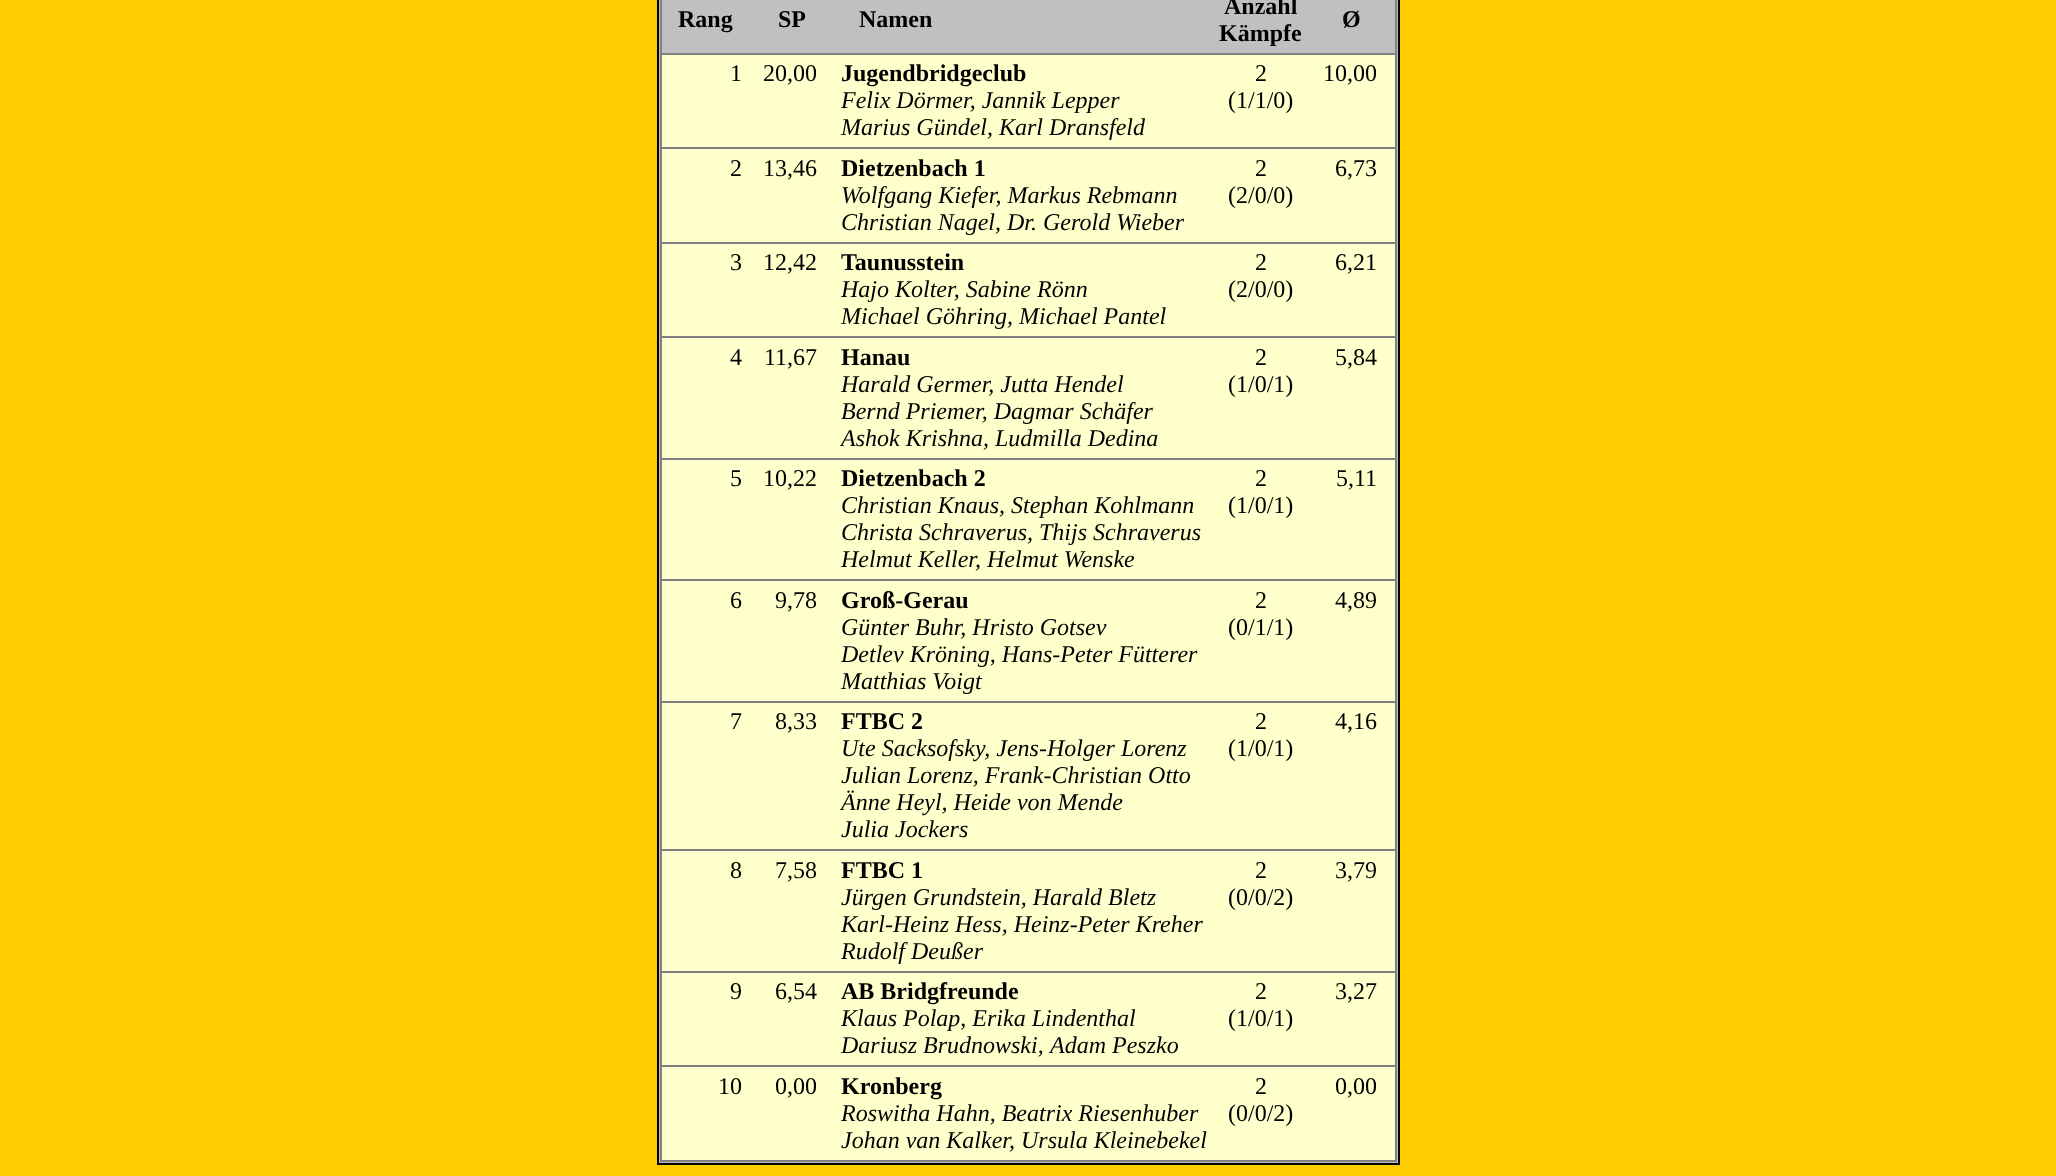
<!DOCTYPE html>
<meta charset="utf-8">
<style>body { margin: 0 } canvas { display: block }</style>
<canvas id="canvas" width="2056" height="1176"></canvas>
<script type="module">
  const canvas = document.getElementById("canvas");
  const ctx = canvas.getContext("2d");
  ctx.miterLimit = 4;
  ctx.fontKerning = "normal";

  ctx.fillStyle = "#ffcc00";
  ctx.fillRect(0, 0, 2056, 1176);
  ctx.fillStyle = "#c0c0c0";
  ctx.fillRect(659, 0, 739, 1163);
  ctx.fillStyle = "#000000";
  ctx.fillRect(1398, 0, 2, 1164);
  ctx.fillRect(657, 1163, 743, 2);
  ctx.fillRect(657, 0, 2, 1164);
  ctx.fillStyle = "#ffffcc";
  ctx.fillRect(662, 55, 733, 1105);
  ctx.fillStyle = "#808080";
  ctx.fillRect(1395, 0, 2, 1161);
  ctx.fillRect(660, 1160, 737, 2);
  ctx.fillRect(660, 0, 2, 1161);
  ctx.font = "bold 24px Liberation Serif";
  ctx.fillStyle = "#000000";
  ctx.fillText("Rang", 678, 27);
  ctx.fillText("SP", 778, 27);
  ctx.fillText("Namen", 859, 27);
  ctx.fillText("Anzahl", 1224, 14);
  ctx.fillText("Kämpfe", 1219, 41);
  ctx.fillText("Ø", 1342, 27);
  ctx.font = "24px Liberation Serif";
  ctx.fillText("1", 730, 81);
  ctx.fillText("20,00", 763, 81);
  ctx.font = "bold 24px Liberation Serif";
  ctx.fillText("Jugendbridgeclub", 841, 81);
  ctx.font = "italic 24px Liberation Serif";
  ctx.fillText("Felix Dörmer, Jannik Lepper", 841, 108);
  ctx.fillText("Marius Gündel, Karl Dransfeld", 841, 135);
  ctx.font = "24px Liberation Serif";
  ctx.fillText("2", 1255, 81);
  ctx.fillText("(1/1/0)", 1228, 108);
  ctx.fillStyle = "#808080";
  ctx.fillRect(660, 53, 737, 2);
  ctx.fillStyle = "#000000";
  ctx.fillText("10,00", 1323, 81);
  ctx.fillText("2", 730, 176);
  ctx.fillText("13,46", 763, 176);
  ctx.font = "bold 24px Liberation Serif";
  ctx.fillText("Dietzenbach 1", 841, 176);
  ctx.font = "italic 24px Liberation Serif";
  ctx.fillText("Wolfgang Kiefer, Markus Rebmann", 841, 203);
  ctx.fillText("Christian Nagel, Dr. Gerold Wieber", 841, 230);
  ctx.font = "24px Liberation Serif";
  ctx.fillText("2", 1255, 176);
  ctx.fillText("(2/0/0)", 1228, 203);
  ctx.fillStyle = "#808080";
  ctx.fillRect(660, 147, 737, 2);
  ctx.fillStyle = "#000000";
  ctx.fillText("6,73", 1335, 176);
  ctx.fillText("3", 730, 270);
  ctx.fillText("12,42", 763, 270);
  ctx.font = "bold 24px Liberation Serif";
  ctx.fillText("Taunusstein", 841, 270);
  ctx.font = "italic 24px Liberation Serif";
  ctx.fillText("Hajo Kolter, Sabine Rönn", 841, 297);
  ctx.fillText("Michael Göhring, Michael Pantel", 841, 324);
  ctx.font = "24px Liberation Serif";
  ctx.fillText("2", 1255, 270);
  ctx.fillText("(2/0/0)", 1228, 297);
  ctx.fillStyle = "#808080";
  ctx.fillRect(660, 242, 737, 2);
  ctx.fillStyle = "#000000";
  ctx.fillText("6,21", 1335, 270);
  ctx.fillText("4", 730, 365);
  ctx.fillText("11,67", 764, 365);
  ctx.font = "bold 24px Liberation Serif";
  ctx.fillText("Hanau", 841, 365);
  ctx.font = "italic 24px Liberation Serif";
  ctx.fillText("Harald Germer, Jutta Hendel", 841, 392);
  ctx.fillText("Bernd Priemer, Dagmar Schäfer", 841, 419);
  ctx.fillText("Ashok Krishna, Ludmilla Dedina", 841, 446);
  ctx.font = "24px Liberation Serif";
  ctx.fillText("2", 1255, 365);
  ctx.fillText("(1/0/1)", 1228, 392);
  ctx.fillStyle = "#808080";
  ctx.fillRect(660, 336, 737, 2);
  ctx.fillStyle = "#000000";
  ctx.fillText("5,84", 1335, 365);
  ctx.fillText("5", 730, 486);
  ctx.fillText("10,22", 763, 486);
  ctx.font = "bold 24px Liberation Serif";
  ctx.fillText("Dietzenbach 2", 841, 486);
  ctx.font = "italic 24px Liberation Serif";
  ctx.fillText("Christian Knaus, Stephan Kohlmann", 841, 513);
  ctx.fillText("Christa Schraverus, Thijs Schraverus", 841, 540);
  ctx.fillText("Helmut Keller, Helmut Wenske", 841, 567);
  ctx.font = "24px Liberation Serif";
  ctx.fillText("2", 1255, 486);
  ctx.fillText("(1/0/1)", 1228, 513);
  ctx.fillStyle = "#808080";
  ctx.fillRect(660, 458, 737, 2);
  ctx.fillStyle = "#000000";
  ctx.fillText("5,11", 1336, 486);
  ctx.fillText("6", 730, 608);
  ctx.fillText("9,78", 775, 608);
  ctx.font = "bold 24px Liberation Serif";
  ctx.fillText("Groß-Gerau", 841, 608);
  ctx.font = "italic 24px Liberation Serif";
  ctx.fillText("Günter Buhr, Hristo Gotsev", 841, 635);
  ctx.fillText("Detlev Kröning, Hans-Peter Fütterer", 841, 662);
  ctx.fillText("Matthias Voigt", 841, 689);
  ctx.font = "24px Liberation Serif";
  ctx.fillText("2", 1255, 608);
  ctx.fillText("(0/1/1)", 1228, 635);
  ctx.fillStyle = "#808080";
  ctx.fillRect(660, 579, 737, 2);
  ctx.fillStyle = "#000000";
  ctx.fillText("4,89", 1335, 608);
  ctx.fillText("7", 730, 729);
  ctx.fillText("8,33", 775, 729);
  ctx.font = "bold 24px Liberation Serif";
  ctx.fillText("FTBC 2", 841, 729);
  ctx.font = "italic 24px Liberation Serif";
  ctx.fillText("Ute Sacksofsky, Jens-Holger Lorenz", 841, 756);
  ctx.fillText("Julian Lorenz, Frank-Christian Otto", 841, 783);
  ctx.fillText("Änne Heyl, Heide von Mende", 841, 810);
  ctx.fillText("Julia Jockers", 841, 837);
  ctx.font = "24px Liberation Serif";
  ctx.fillText("2", 1255, 729);
  ctx.fillText("(1/0/1)", 1228, 756);
  ctx.fillStyle = "#808080";
  ctx.fillRect(660, 701, 737, 2);
  ctx.fillStyle = "#000000";
  ctx.fillText("4,16", 1335, 729);
  ctx.fillText("8", 730, 878);
  ctx.fillText("7,58", 775, 878);
  ctx.font = "bold 24px Liberation Serif";
  ctx.fillText("FTBC 1", 841, 878);
  ctx.font = "italic 24px Liberation Serif";
  ctx.fillText("Jürgen Grundstein, Harald Bletz", 841, 905);
  ctx.fillText("Karl-Heinz Hess, Heinz-Peter Kreher", 841, 932);
  ctx.fillText("Rudolf Deußer", 841, 959);
  ctx.font = "24px Liberation Serif";
  ctx.fillText("2", 1255, 878);
  ctx.fillText("(0/0/2)", 1228, 905);
  ctx.fillStyle = "#808080";
  ctx.fillRect(660, 849, 737, 2);
  ctx.fillStyle = "#000000";
  ctx.fillText("3,79", 1335, 878);
  ctx.fillText("9", 730, 999);
  ctx.fillText("6,54", 775, 999);
  ctx.font = "bold 24px Liberation Serif";
  ctx.fillText("AB Bridgfreunde", 841, 999);
  ctx.font = "italic 24px Liberation Serif";
  ctx.fillText("Klaus Polap, Erika Lindenthal", 841, 1026);
  ctx.fillText("Dariusz Brudnowski,", 841, 1053);
  ctx.fillText("Adam Peszko", 1050, 1053);
  ctx.font = "24px Liberation Serif";
  ctx.fillText("2", 1255, 999);
  ctx.fillText("(1/0/1)", 1228, 1026);
  ctx.fillStyle = "#808080";
  ctx.fillRect(660, 971, 737, 2);
  ctx.fillStyle = "#000000";
  ctx.fillText("3,27", 1335, 999);
  ctx.fillText("10", 718, 1094);
  ctx.fillText("0,00", 775, 1094);
  ctx.font = "bold 24px Liberation Serif";
  ctx.fillText("Kronberg", 841, 1094);
  ctx.font = "italic 24px Liberation Serif";
  ctx.fillText("Roswitha Hahn, Beatrix Riesenhuber", 841, 1121);
  ctx.fillText("Johan van Kalker, Ursula Kleinebekel", 841, 1148);
  ctx.font = "24px Liberation Serif";
  ctx.fillText("2", 1255, 1094);
  ctx.fillText("(0/0/2)", 1228, 1121);
  ctx.fillStyle = "#808080";
  ctx.fillRect(660, 1065, 737, 2);
  ctx.fillStyle = "#000000";
  ctx.fillText("0,00", 1335, 1094);
</script>
